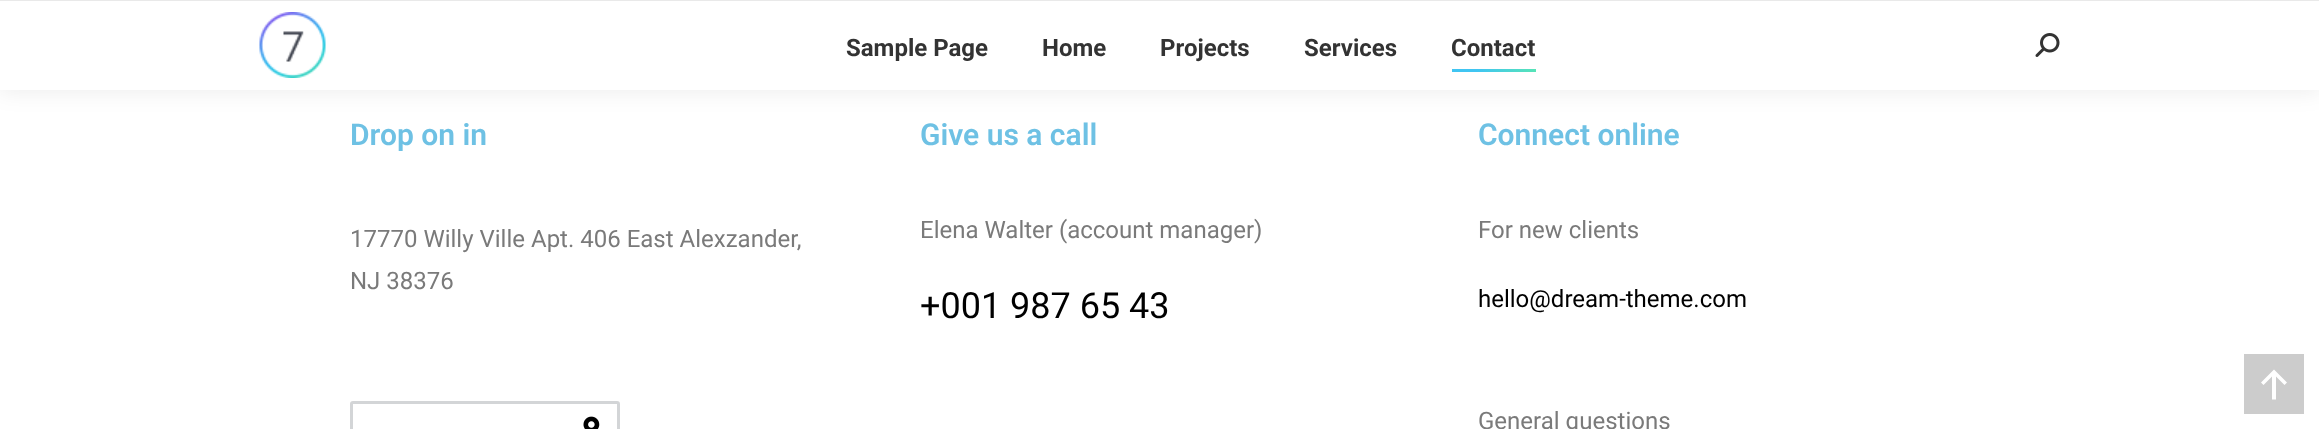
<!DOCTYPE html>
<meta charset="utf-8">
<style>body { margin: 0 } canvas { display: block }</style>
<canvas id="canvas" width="2319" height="429"></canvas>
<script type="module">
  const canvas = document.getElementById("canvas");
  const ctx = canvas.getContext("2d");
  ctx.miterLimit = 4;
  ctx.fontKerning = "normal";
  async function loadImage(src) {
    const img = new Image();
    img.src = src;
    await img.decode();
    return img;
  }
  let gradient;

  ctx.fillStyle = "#ffffff";
  ctx.fillRect(0, 0, 2319, 429);
  ctx.fillStyle = "rgba(0, 0, 0, 0.07)";
  ctx.filter = "blur(11px)";
  ctx.beginPath();
  ctx.rect(-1, -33, 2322, 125);
  ctx.fill();
  ctx.filter = "none";
  ctx.fillStyle = "#ffffff";
  ctx.fillRect(0, 1, 2319, 89);
  ctx.fillStyle = "#e9e9e9";
  ctx.fillRect(0, 0, 2319, 1);
  ctx.drawImage(await loadImage("img1.png"), 259, 12, 67, 66);
  ctx.font = "bold 24px Roboto";
  ctx.fillStyle = "#333333";
  ctx.fillText("Sample Page", 846, 56);
  ctx.fillText("Home", 1042, 56);
  ctx.fillText("Projects", 1160, 56);
  ctx.fillText("Services", 1304, 56);
  ctx.fillText("Contact", 1451, 56);
  gradient = ctx.createLinearGradient(1452, 71, 1536, 71);
  gradient.addColorStop(0.3, "#40c5f2");
  gradient.addColorStop(1, "#57e4b7");
  ctx.fillStyle = gradient;
  ctx.fillRect(1452, 69, 84, 3);
  ctx.drawImage(await loadImage("img2.png"), 2035, 33, 25, 24);
  ctx.font = "600 30px Roboto";
  ctx.fillStyle = "#6ec1e4";
  ctx.fillText("Drop on in", 350, 145);
  ctx.font = "24px Roboto";
  ctx.fillStyle = "#7a7a7a";
  ctx.fillText("17770 Willy Ville Apt. 406 East Alexzander,", 350, 247);
  ctx.fillText("NJ 38376", 350, 289);
  ctx.beginPath();
  ctx.roundRect(351.5, 402.5, 267, 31, 1.5);
  ctx.strokeStyle = "#d3d5d7";
  ctx.lineWidth = 3;
  ctx.stroke();
  ctx.drawImage(await loadImage("img3.png"), 583, 416, 17, 13);
  ctx.font = "600 30px Roboto";
  ctx.fillStyle = "#6ec1e4";
  ctx.fillText("Give us a call", 920, 145);
  ctx.font = "24px Roboto";
  ctx.fillStyle = "#7a7a7a";
  ctx.fillText("Elena Walter (account manager)", 920, 238);
  ctx.font = "36px Roboto";
  ctx.fillStyle = "#000000";
  ctx.fillText("+001 987 65 43", 920, 318);
  ctx.font = "600 30px Roboto";
  ctx.fillStyle = "#6ec1e4";
  ctx.fillText("Connect online", 1478, 145);
  ctx.font = "24px Roboto";
  ctx.fillStyle = "#7a7a7a";
  ctx.fillText("For new clients", 1478, 238);
  ctx.fillStyle = "#000000";
  ctx.fillText("hello@dream-theme.com", 1478, 307);
  ctx.fillStyle = "#7a7a7a";
  ctx.fillText("General questions", 1478, 429);
  ctx.fillStyle = "#cccccc";
  ctx.fillRect(2244, 354, 60, 60);
  ctx.fillStyle = "#ffffff";
  ctx.beginPath();
  ctx.moveTo(2261, 382.5);
  ctx.lineTo(2263.5, 385);
  ctx.lineTo(2272, 376.5);
  ctx.lineTo(2272, 399.5);
  ctx.lineTo(2276, 399.5);
  ctx.lineTo(2276, 376.5);
  ctx.lineTo(2284.5, 385);
  ctx.lineTo(2287, 382.5);
  ctx.lineTo(2274, 369.5);
  ctx.closePath();
  ctx.fill();
</script>
